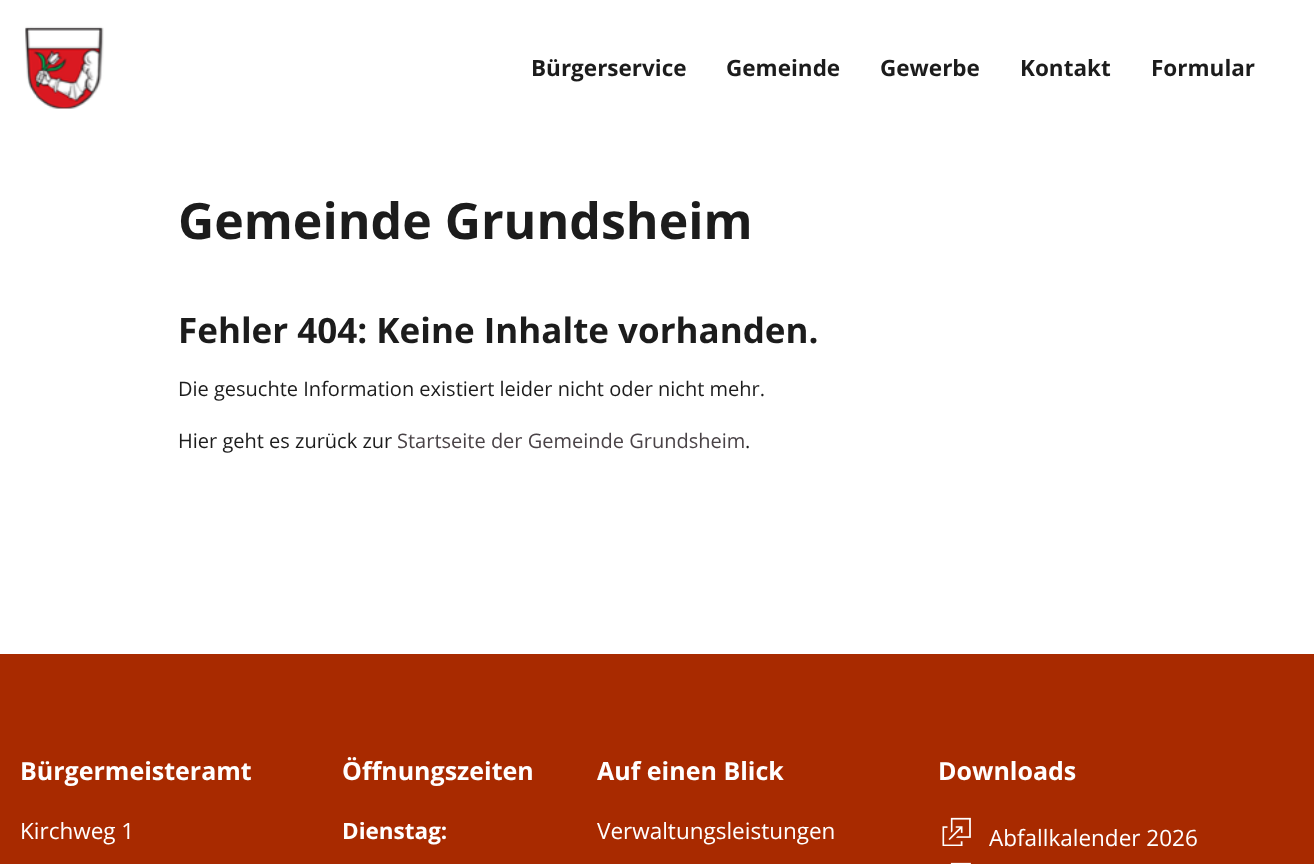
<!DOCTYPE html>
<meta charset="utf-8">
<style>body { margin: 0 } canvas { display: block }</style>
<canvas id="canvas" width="1314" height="864"></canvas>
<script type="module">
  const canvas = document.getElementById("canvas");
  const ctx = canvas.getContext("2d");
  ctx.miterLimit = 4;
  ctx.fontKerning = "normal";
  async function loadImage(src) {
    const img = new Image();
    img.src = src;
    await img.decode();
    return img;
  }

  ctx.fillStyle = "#ffffff";
  ctx.fillRect(0, 0, 1314, 864);
  ctx.drawImage(await loadImage("img1.png"), 25, 26, 79, 83);
  ctx.font = "bold 22.5px Open Sans";
  ctx.fillStyle = "#1c1c1c";
  ctx.fillText("Bürgerservice", 531, 76);
  ctx.fillText("Gemeinde", 726, 76);
  ctx.fillText("Gewerbe", 880, 76);
  ctx.fillText("Kontakt", 1020, 76);
  ctx.fillText("Formular", 1151, 76);
  ctx.font = "bold 50px Open Sans";
  ctx.fillText("Gemeinde Grundsheim", 178, 239);
  ctx.font = "bold 35px Open Sans";
  ctx.fillText("Fehler 404: Keine Inhalte vorhanden.", 178, 343);
  ctx.font = "20px Open Sans";
  ctx.fillText("Die gesuchte Information existiert leider nicht oder nicht mehr.", 178, 396);
  ctx.fillText("Hier geht es zurück zur", 178, 448);
  ctx.fillStyle = "#4a4347";
  ctx.fillText("Startseite der Gemeinde Grundsheim", 397, 448);
  ctx.fillStyle = "#1c1c1c";
  ctx.fillText(".", 745, 448);
  ctx.fillStyle = "#a82a00";
  ctx.fillRect(0, 654, 1314, 210);
  ctx.font = "bold 25px Open Sans";
  ctx.fillStyle = "#ffffff";
  ctx.fillText("Bürgermeisteramt", 20, 780);
  ctx.font = "22.5px Open Sans";
  ctx.fillText("Kirchweg 1", 20, 839);
  ctx.font = "bold 25px Open Sans";
  ctx.fillText("Öffnungszeiten", 342, 780);
  ctx.font = "bold 22.5px Open Sans";
  ctx.fillText("Dienstag:", 342, 839);
  ctx.font = "bold 25px Open Sans";
  ctx.fillText("Auf einen Blick", 597, 780);
  ctx.font = "22.5px Open Sans";
  ctx.fillText("Verwaltungsleistungen", 597, 839);
  ctx.font = "bold 25px Open Sans";
  ctx.fillText("Downloads", 938, 780);
  ctx.drawImage(await loadImage("img2.png"), 942, 817, 29, 29);
  ctx.font = "22.5px Open Sans";
  ctx.fillText("Abfallkalender 2026", 989, 846);
  ctx.drawImage(await loadImage("img3.png"), 950, 862, 21, 2);
</script>
